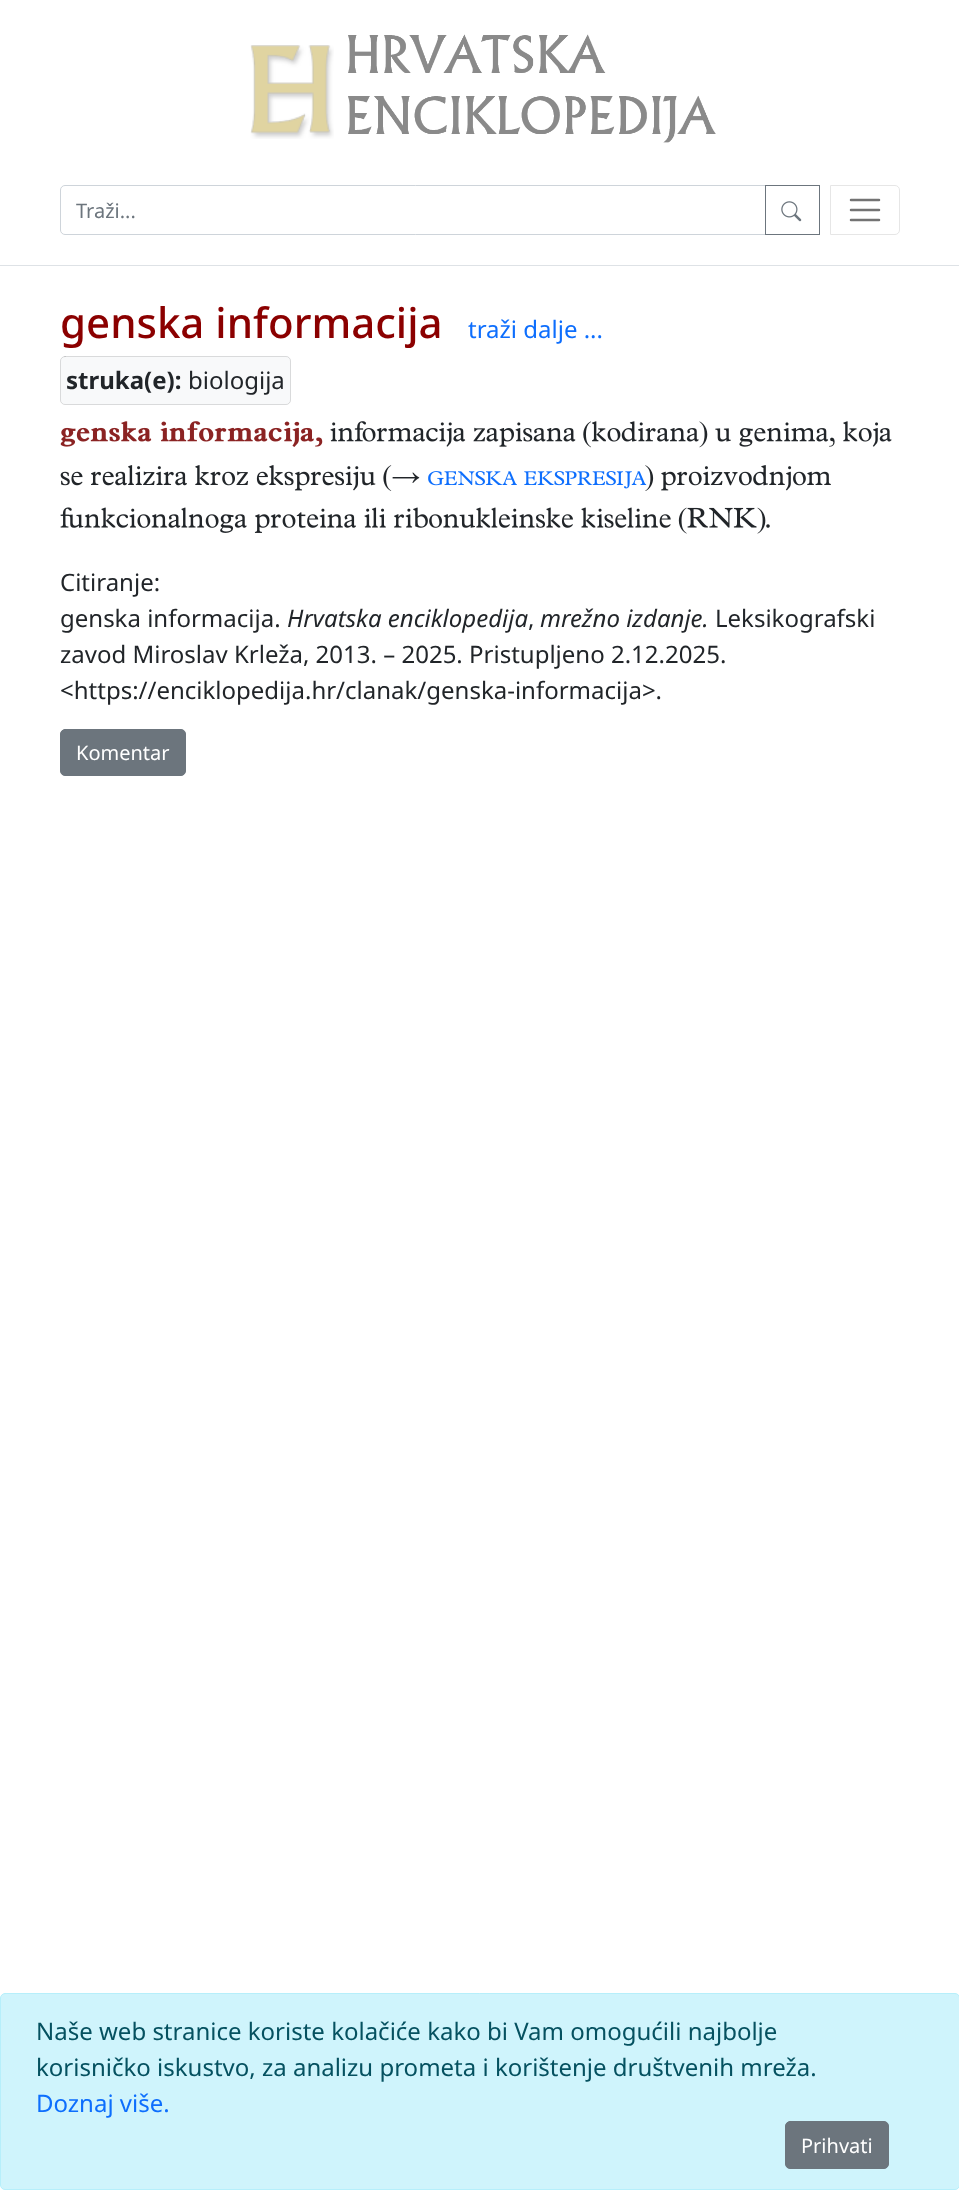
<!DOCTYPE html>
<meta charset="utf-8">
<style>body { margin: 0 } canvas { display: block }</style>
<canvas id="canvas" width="959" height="2210"></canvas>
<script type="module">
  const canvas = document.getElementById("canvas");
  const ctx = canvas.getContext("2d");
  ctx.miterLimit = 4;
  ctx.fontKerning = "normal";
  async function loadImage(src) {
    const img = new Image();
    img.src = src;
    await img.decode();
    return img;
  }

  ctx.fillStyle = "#ffffff";
  ctx.fillRect(0, 0, 959, 2210);
  ctx.drawImage(await loadImage("img1.png"), 250, 45, 84, 94);
  ctx.drawImage(await loadImage("img2.png"), 348, 34, 368, 109);
  ctx.fillStyle = "#dee2e6";
  ctx.fillRect(0, 265, 959, 1);
  ctx.beginPath();
  ctx.roundRect(60.5, 185.5, 705, 49, [4.5, 0, 0, 4.5]);
  ctx.strokeStyle = "#ced4da";
  ctx.stroke();
  ctx.font = "20px Noto Sans";
  ctx.fillStyle = "#6c757d";
  ctx.fillText("Traži...", 76, 218);
  ctx.strokeStyle = "#6c757d";
  ctx.strokeRect(765.5, 185.5, 54, 49);
  ctx.drawImage(await loadImage("img3.png"), 781, 201, 21, 21);
  ctx.beginPath();
  ctx.roundRect(830.5, 185.5, 69, 49, [0, 4.5, 4.5, 0]);
  ctx.strokeStyle = "#e6e6e6";
  ctx.stroke();
  ctx.beginPath();
  ctx.moveTo(851, 200);
  ctx.lineTo(879, 200);
  ctx.moveTo(851, 210);
  ctx.lineTo(879, 210);
  ctx.moveTo(851, 220);
  ctx.lineTo(879, 220);
  ctx.strokeStyle = "#737373";
  ctx.lineWidth = 2.5;
  ctx.lineCap = "round";
  ctx.stroke();
  ctx.font = "500 42px Noto Sans";
  ctx.fillStyle = "#8b0000";
  ctx.fillText("genska informacija", 60, 338);
  ctx.font = "24px Noto Sans";
  ctx.fillStyle = "#0d6efd";
  ctx.fillText("traži dalje ...", 468, 338);
  ctx.fillStyle = "#f8f9fa";
  ctx.beginPath();
  ctx.roundRect(60, 356, 231, 49, 5);
  ctx.fill();
  ctx.beginPath();
  ctx.roundRect(60.5, 356.5, 230, 48, 4.5);
  ctx.strokeStyle = "rgba(0, 0, 0, 0.12)";
  ctx.lineWidth = 1;
  ctx.stroke();
  ctx.font = "bold 24px Noto Sans";
  ctx.fillStyle = "#212529";
  ctx.fillText("struka(e):", 66, 389);
  ctx.font = "24px Noto Sans";
  ctx.fillText("biologija", 188, 389);
  ctx.drawImage(await loadImage("img4.png"), 60, 421, 263, 26);
  ctx.drawImage(await loadImage("img5.png"), 330, 421, 562, 27);
  ctx.drawImage(await loadImage("img6.png"), 60, 465, 360, 26);
  ctx.drawImage(await loadImage("img7.png"), 428, 471, 89, 15);
  ctx.drawImage(await loadImage("img8.png"), 524, 471, 123, 18);
  ctx.drawImage(await loadImage("img9.png"), 645, 465, 186, 26);
  ctx.drawImage(await loadImage("img10.png"), 60, 507, 710, 27);
  ctx.fillText("Citiranje:", 60, 591);
  ctx.fillText("genska informacija.", 60, 627);
  ctx.font = "italic 24px Noto Sans";
  ctx.fillText("Hrvatska enciklopedija", 287, 627);
  ctx.font = "24px Noto Sans";
  ctx.fillText(",", 528, 627);
  ctx.font = "italic 24px Noto Sans";
  ctx.fillText("mrežno izdanje.", 540, 627);
  ctx.font = "24px Noto Sans";
  ctx.fillText("Leksikografski", 715, 627);
  ctx.fillText("zavod Miroslav Krleža, 2013. – 2025. Pristupljeno 2.12.2025.", 60, 663);
  ctx.fillText("<https://enciklopedija.hr/clanak/genska-informacija>.", 60, 699);
  ctx.fillStyle = "#6c757d";
  ctx.beginPath();
  ctx.roundRect(60.5, 729.5, 125, 46, 4.5);
  ctx.fill();
  ctx.strokeStyle = "#6c757d";
  ctx.stroke();
  ctx.font = "20px Noto Sans";
  ctx.fillStyle = "#ffffff";
  ctx.fillText("Komentar", 76, 760);
  ctx.fillStyle = "#cff4fc";
  ctx.beginPath();
  ctx.roundRect(0.5, 1993.5, 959, 196, 4.5);
  ctx.fill();
  ctx.strokeStyle = "#b6effb";
  ctx.stroke();
  ctx.font = "24px Noto Sans";
  ctx.fillStyle = "#055160";
  ctx.fillText("Naše web stranice koriste kolačiće kako bi Vam omogućili najbolje", 36, 2040);
  ctx.fillText("korisničko iskustvo, za analizu prometa i korištenje društvenih mreža.", 36, 2076);
  ctx.fillStyle = "#0d6efd";
  ctx.fillText("Doznaj više.", 36, 2112);
  ctx.fillStyle = "#6c757d";
  ctx.beginPath();
  ctx.roundRect(785.5, 2121.5, 103, 47, 4.5);
  ctx.fill();
  ctx.strokeStyle = "#6c757d";
  ctx.stroke();
  ctx.font = "20px Noto Sans";
  ctx.fillStyle = "#ffffff";
  ctx.fillText("Prihvati", 801, 2153);
</script>
